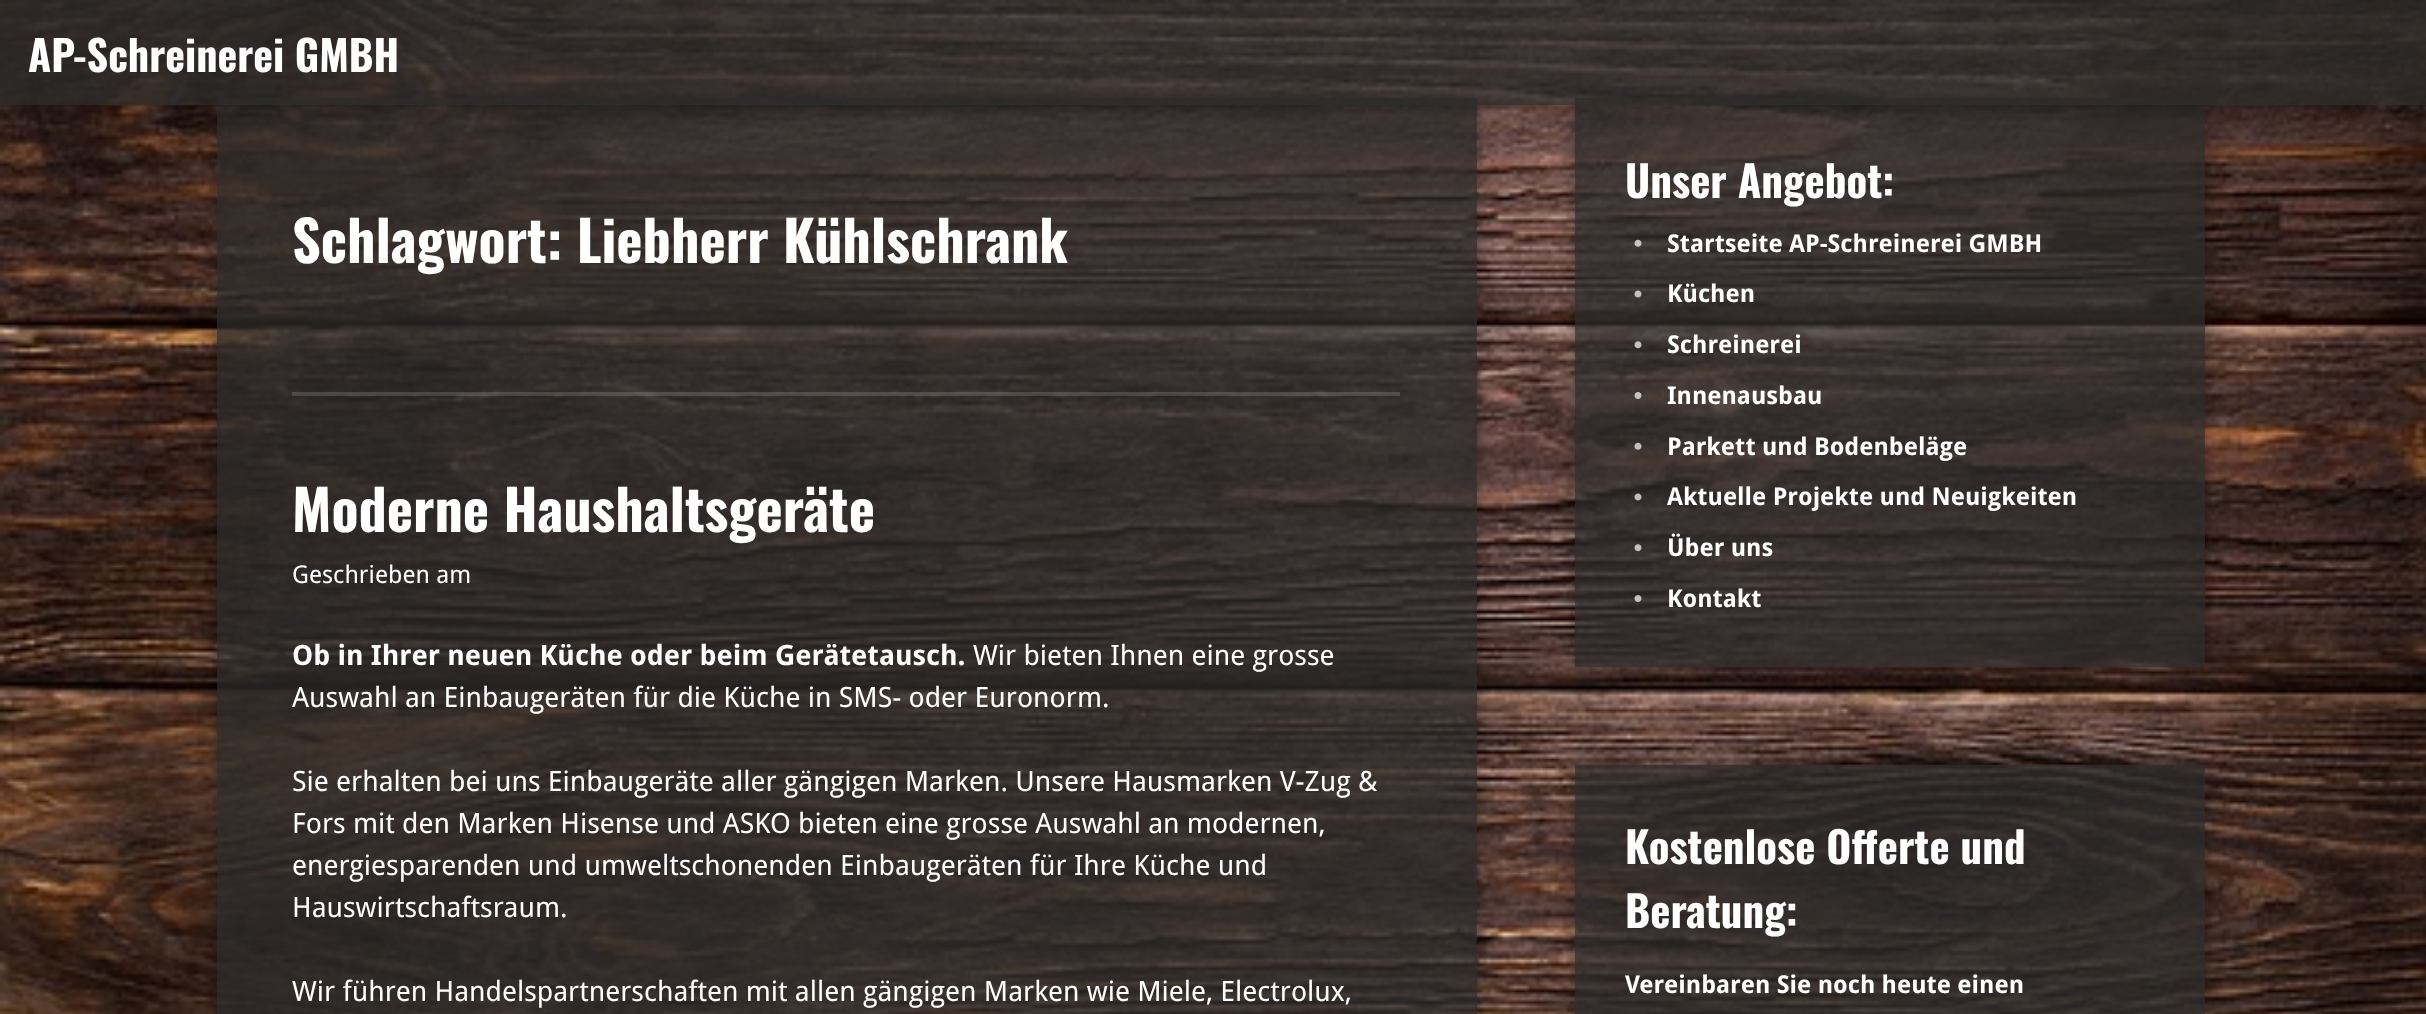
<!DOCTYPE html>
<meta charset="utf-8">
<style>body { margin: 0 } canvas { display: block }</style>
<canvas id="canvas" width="2426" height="1014"></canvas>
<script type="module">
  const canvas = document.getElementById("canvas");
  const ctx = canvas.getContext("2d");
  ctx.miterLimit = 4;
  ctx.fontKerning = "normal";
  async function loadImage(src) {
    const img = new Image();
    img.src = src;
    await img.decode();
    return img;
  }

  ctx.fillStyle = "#ffffff";
  ctx.fillRect(0, 0, 2426, 1014);
  ctx.drawImage(await loadImage("img1.png"), 0, 0, 2426, 1014);
  ctx.save();
  ctx.beginPath();
  ctx.moveTo(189, 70);
  ctx.lineTo(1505, 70);
  ctx.lineTo(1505, 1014);
  ctx.lineTo(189, 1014);
  ctx.closePath();
  ctx.moveTo(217, 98);
  ctx.lineTo(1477, 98);
  ctx.lineTo(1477, 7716);
  ctx.lineTo(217, 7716);
  ctx.closePath();
  ctx.clip("evenodd");
  ctx.fillStyle = "rgba(0, 0, 0, 0.4)";
  ctx.filter = "blur(9px)";
  ctx.beginPath();
  ctx.rect(217, 98, 1260, 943);
  ctx.fill();
  ctx.filter = "none";
  ctx.restore();
  ctx.fillStyle = "rgba(43, 43, 43, 0.75)";
  ctx.fillRect(217, 98, 1260, 916);
  ctx.save();
  ctx.beginPath();
  ctx.moveTo(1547, 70);
  ctx.lineTo(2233, 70);
  ctx.lineTo(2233, 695);
  ctx.lineTo(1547, 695);
  ctx.closePath();
  ctx.moveTo(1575, 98);
  ctx.lineTo(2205, 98);
  ctx.lineTo(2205, 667);
  ctx.lineTo(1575, 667);
  ctx.closePath();
  ctx.clip("evenodd");
  ctx.fillStyle = "rgba(0, 0, 0, 0.4)";
  ctx.filter = "blur(9px)";
  ctx.beginPath();
  ctx.rect(1575, 98, 630, 569);
  ctx.fill();
  ctx.filter = "none";
  ctx.restore();
  ctx.fillRect(1575, 98, 630, 569);
  ctx.save();
  ctx.beginPath();
  ctx.rect(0, 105, 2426, 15);
  ctx.clip();
  ctx.fillStyle = "rgba(0, 0, 0, 0.4)";
  ctx.filter = "blur(9px)";
  ctx.beginPath();
  ctx.rect(0, 0, 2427, 105);
  ctx.fill();
  ctx.filter = "none";
  ctx.restore();
  ctx.fillRect(0, 0, 2426, 105);
  ctx.font = "bold 42px Oswald";
  ctx.fillStyle = "#ffffff";
  ctx.fillText("AP-Schreinerei GMBH", 28, 72);
  ctx.fillStyle = "rgba(255, 255, 255, 0.15)";
  ctx.fillRect(292, 392, 1108, 4);
  ctx.font = "bold 56px Oswald";
  ctx.fillStyle = "#ffffff";
  ctx.fillText("Schlagwort: Liebherr Kühlschrank", 292, 263);
  ctx.fillText("Moderne Haushaltsgeräte", 292, 532);
  ctx.font = "24.5px Droid Sans";
  ctx.fillText("Geschrieben am", 292, 583);
  ctx.font = "bold 28px Droid Sans";
  ctx.fillText("Ob in Ihrer neuen Küche oder beim Gerätetausch.", 292, 665);
  ctx.font = "28px Droid Sans";
  ctx.fillText("Wir bieten Ihnen eine grosse", 973, 665);
  ctx.fillText("Auswahl an Einbaugeräten für die Küche in SMS- oder Euronorm.", 292, 707);
  ctx.fillText("Sie erhalten bei uns Einbaugeräte aller gängigen Marken. Unsere Hausmarken V-Zug &", 292, 791);
  ctx.fillText("Fors mit den Marken Hisense und ASKO bieten eine grosse Auswahl an modernen,", 292, 833);
  ctx.fillText("energiesparenden und umweltschonenden Einbaugeräten für Ihre Küche und", 292, 875);
  ctx.fillText("Hauswirtschaftsraum.", 292, 917);
  ctx.fillText("Wir führen Handelspartnerschaften mit allen gängigen Marken wie Miele, Electrolux,", 292, 1001);
  ctx.font = "bold 42.9px Oswald";
  ctx.fillText("Unser Angebot:", 1625, 198);
  ctx.drawImage(await loadImage("img2.png"), 1634, 239, 8, 8);
  ctx.font = "bold 24.5px Droid Sans";
  ctx.fillText("Startseite AP-Schreinerei GMBH", 1667, 252);
  ctx.drawImage(await loadImage("img3.png"), 1634, 290, 8, 8);
  ctx.fillText("Küchen", 1667, 302);
  ctx.drawImage(await loadImage("img4.png"), 1634, 341, 8, 8);
  ctx.fillText("Schreinerei", 1667, 353);
  ctx.drawImage(await loadImage("img5.png"), 1634, 392, 8, 7);
  ctx.fillText("Innenausbau", 1667, 404);
  ctx.drawImage(await loadImage("img6.png"), 1634, 442, 8, 8);
  ctx.fillText("Parkett und Bodenbeläge", 1667, 455);
  ctx.drawImage(await loadImage("img7.png"), 1634, 493, 8, 8);
  ctx.fillText("Aktuelle Projekte und Neuigkeiten", 1667, 505);
  ctx.drawImage(await loadImage("img8.png"), 1634, 544, 8, 8);
  ctx.fillText("Über uns", 1667, 556);
  ctx.drawImage(await loadImage("img9.png"), 1634, 595, 8, 7);
  ctx.fillText("Kontakt", 1667, 607);
  ctx.save();
  ctx.beginPath();
  ctx.moveTo(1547, 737);
  ctx.lineTo(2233, 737);
  ctx.lineTo(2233, 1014);
  ctx.lineTo(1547, 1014);
  ctx.closePath();
  ctx.moveTo(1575, 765);
  ctx.lineTo(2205, 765);
  ctx.lineTo(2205, 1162);
  ctx.lineTo(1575, 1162);
  ctx.closePath();
  ctx.clip("evenodd");
  ctx.fillStyle = "rgba(0, 0, 0, 0.4)";
  ctx.filter = "blur(9px)";
  ctx.beginPath();
  ctx.rect(1575, 765, 630, 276);
  ctx.fill();
  ctx.filter = "none";
  ctx.restore();
  ctx.fillStyle = "rgba(43, 43, 43, 0.75)";
  ctx.fillRect(1575, 765, 630, 249);
  ctx.font = "bold 42.9px Oswald";
  ctx.fillStyle = "#ffffff";
  ctx.fillText("Kostenlose Offerte und", 1625, 864);
  ctx.fillText("Beratung:", 1625, 928);
  ctx.font = "bold 24.5px Droid Sans";
  ctx.fillText("Vereinbaren Sie noch heute einen", 1625, 993);
</script>
